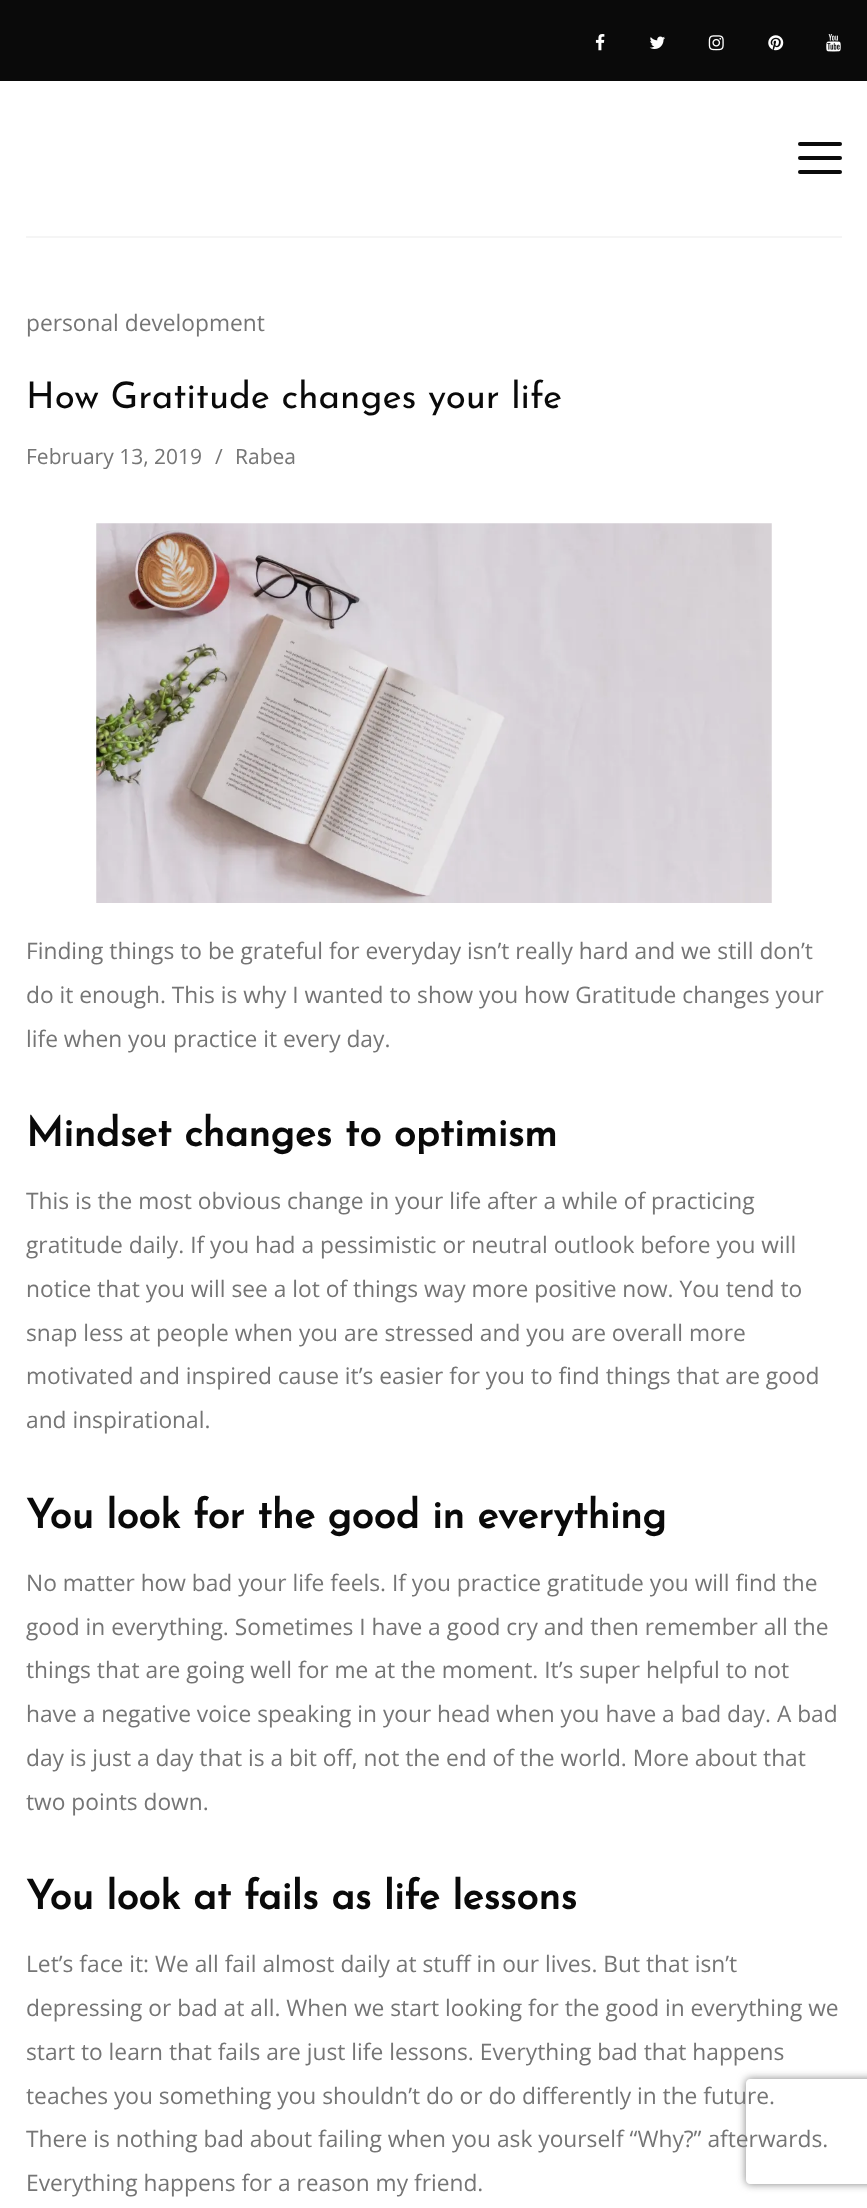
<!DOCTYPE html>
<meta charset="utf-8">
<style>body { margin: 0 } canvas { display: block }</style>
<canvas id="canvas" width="867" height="2208"></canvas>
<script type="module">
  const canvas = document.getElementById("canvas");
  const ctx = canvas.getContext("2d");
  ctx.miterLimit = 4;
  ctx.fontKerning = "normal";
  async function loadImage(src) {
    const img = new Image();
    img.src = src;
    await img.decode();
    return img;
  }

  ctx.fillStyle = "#ffffff";
  ctx.fillRect(0, 0, 867, 2208);
  ctx.fillStyle = "#0a0a0a";
  ctx.fillRect(0, 0, 867, 81);
  ctx.drawImage(await loadImage("img1.png"), 595, 34, 10, 17);
  ctx.drawImage(await loadImage("img2.png"), 649, 36, 16, 13);
  ctx.drawImage(await loadImage("img3.png"), 708, 35, 16, 16);
  ctx.drawImage(await loadImage("img4.png"), 768, 35, 16, 16);
  ctx.drawImage(await loadImage("img5.png"), 826, 34, 15, 18);
  ctx.fillStyle = "#f5f5f5";
  ctx.fillRect(26, 236, 816, 2);
  ctx.fillStyle = "#0a0a0a";
  ctx.beginPath();
  ctx.roundRect(798, 142, 44, 4, 2);
  ctx.fill();
  ctx.beginPath();
  ctx.roundRect(798, 156, 44, 4, 2);
  ctx.fill();
  ctx.beginPath();
  ctx.roundRect(798, 170, 44, 4, 2);
  ctx.fill();
  ctx.font = "22.75px Open Sans";
  ctx.fillStyle = "#757575";
  ctx.fillText("personal development", 26, 331);
  ctx.font = "100 36.75px Josefin Sans";
  ctx.fillStyle = "#0a0a0a";
  ctx.fillText("How Gratitude changes your life", 26, 408);
  ctx.font = "21px Open Sans";
  ctx.fillStyle = "#757575";
  ctx.fillText("February 13, 2019", 26, 464);
  ctx.fillText("/", 215, 464);
  ctx.fillText("Rabea", 235, 464);
  ctx.drawImage(await loadImage("img6.png"), 96, 523, 676, 380);
  ctx.font = "22.75px Open Sans";
  ctx.fillText("Finding things to be grateful for everyday isn’t really hard and we still don’t", 26, 959);
  ctx.fillText("do it enough. This is why I wanted to show you how Gratitude changes your", 26, 1003);
  ctx.fillText("life when you practice it every day.", 26, 1047);
  ctx.font = "bold 40.25px Josefin Sans";
  ctx.fillStyle = "#0a0a0a";
  ctx.fillText("Mindset changes to optimism", 26, 1146);
  ctx.font = "22.75px Open Sans";
  ctx.fillStyle = "#757575";
  ctx.fillText("This is the most obvious change in your life after a while of practicing", 26, 1209);
  ctx.fillText("gratitude daily. If you had a pessimistic or neutral outlook before you will", 26, 1253);
  ctx.fillText("notice that you will see a lot of things way more positive now. You tend to", 26, 1297);
  ctx.fillText("snap less at people when you are stressed and you are overall more", 26, 1341);
  ctx.fillText("motivated and inspired cause it’s easier for you to find things that are good", 26, 1384);
  ctx.fillText("and inspirational.", 26, 1428);
  ctx.font = "bold 40.25px Josefin Sans";
  ctx.fillStyle = "#0a0a0a";
  ctx.fillText("You look for the good in everything", 26, 1528);
  ctx.font = "22.75px Open Sans";
  ctx.fillStyle = "#757575";
  ctx.fillText("No matter how bad your life feels. If you practice gratitude you will find the", 26, 1591);
  ctx.fillText("good in everything. Sometimes I have a good cry and then remember all the", 26, 1635);
  ctx.fillText("things that are going well for me at the moment. It’s super helpful to not", 26, 1678);
  ctx.fillText("have a negative voice speaking in your head when you have a bad day. A bad", 26, 1722);
  ctx.fillText("day is just a day that is a bit off, not the end of the world. More about that", 26, 1766);
  ctx.fillText("two points down.", 26, 1810);
  ctx.font = "bold 40.25px Josefin Sans";
  ctx.fillStyle = "#0a0a0a";
  ctx.fillText("You look at fails as life lessons", 26, 1909);
  ctx.font = "22.75px Open Sans";
  ctx.fillStyle = "#757575";
  ctx.fillText("Let’s face it: We all fail almost daily at stuff in our lives. But that isn’t", 26, 1972);
  ctx.fillText("depressing or bad at all. When we start looking for the good in everything we", 26, 2016);
  ctx.fillText("start to learn that fails are just life lessons. Everything bad that happens", 26, 2060);
  ctx.fillText("teaches you something you shouldn’t do or do differently in the future.", 26, 2104);
  ctx.fillText("There is nothing bad about failing when you ask yourself “Why?” afterwards.", 26, 2147);
  ctx.fillText("Everything happens for a reason my friend.", 26, 2191);
  ctx.save();
  ctx.beginPath();
  ctx.moveTo(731, 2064);
  ctx.lineTo(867, 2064);
  ctx.lineTo(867, 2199);
  ctx.lineTo(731, 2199);
  ctx.closePath();
  ctx.moveTo(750, 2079);
  ctx.lineTo(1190, 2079);
  ctx.bezierCurveTo(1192, 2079, 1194, 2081, 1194, 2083);
  ctx.lineTo(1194, 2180);
  ctx.bezierCurveTo(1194, 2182, 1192, 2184, 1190, 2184);
  ctx.lineTo(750, 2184);
  ctx.bezierCurveTo(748, 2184, 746, 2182, 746, 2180);
  ctx.lineTo(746, 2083);
  ctx.bezierCurveTo(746, 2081, 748, 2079, 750, 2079);
  ctx.closePath();
  ctx.clip("evenodd");
  ctx.fillStyle = "#808080";
  ctx.filter = "blur(4.5px)";
  ctx.beginPath();
  ctx.roundRect(746, 2079, 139, 105, 4);
  ctx.fill();
  ctx.filter = "none";
  ctx.restore();
</script>
